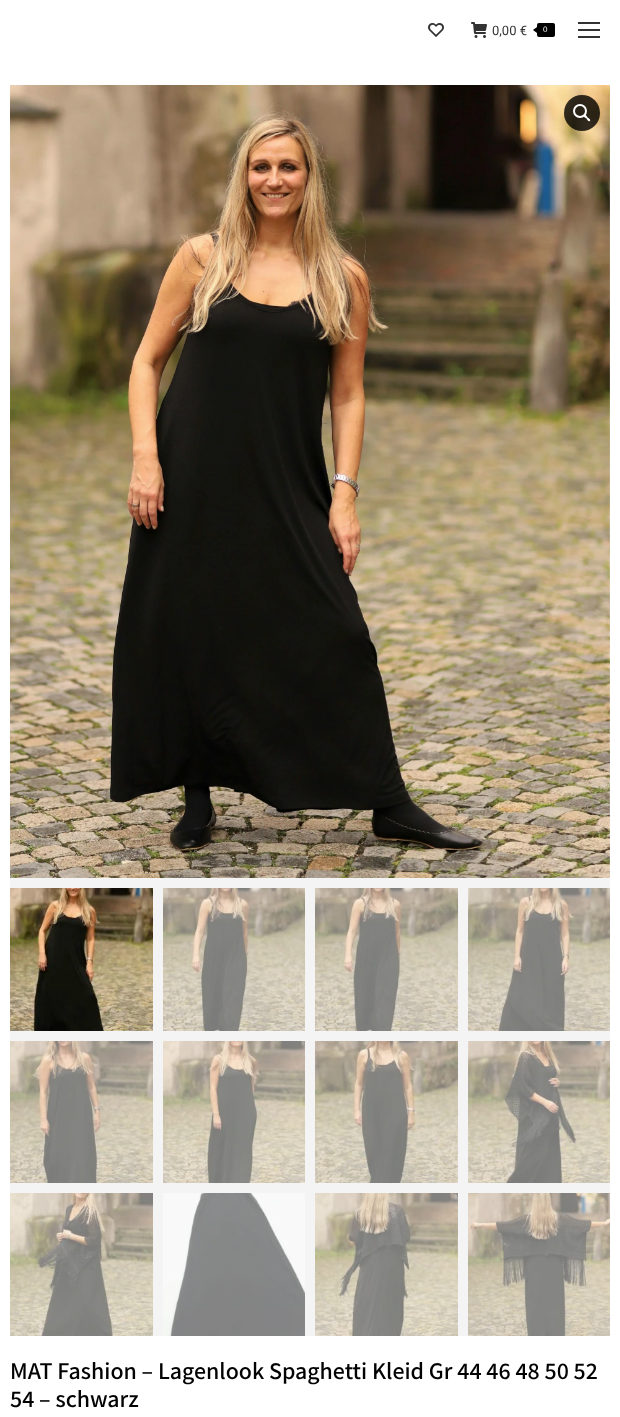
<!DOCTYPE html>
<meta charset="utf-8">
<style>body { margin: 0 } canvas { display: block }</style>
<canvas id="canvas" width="620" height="1417"></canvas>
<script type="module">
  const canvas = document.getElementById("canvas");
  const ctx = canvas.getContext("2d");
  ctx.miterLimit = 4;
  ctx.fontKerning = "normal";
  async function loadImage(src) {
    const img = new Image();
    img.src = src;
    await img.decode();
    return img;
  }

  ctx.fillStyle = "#ffffff";
  ctx.fillRect(0, 0, 620, 1417);
  ctx.drawImage(await loadImage("img1.png"), 428, 23, 16, 14);
  ctx.drawImage(await loadImage("img2.png"), 471, 22, 16, 16);
  ctx.font = "13px Roboto";
  ctx.fillStyle = "#333333";
  ctx.fillText("0,00 €", 492, 35);
  ctx.fillStyle = "#000000";
  ctx.beginPath();
  ctx.roundRect(537, 23, 18, 14, 2);
  ctx.fill();
  ctx.beginPath();
  ctx.moveTo(537, 27);
  ctx.lineTo(537, 33);
  ctx.lineTo(533, 30);
  ctx.closePath();
  ctx.fill();
  ctx.font = "8px Liberation Sans";
  ctx.fillStyle = "#ffffff";
  ctx.fillText("0", 543, 32);
  ctx.fillStyle = "#333333";
  ctx.fillRect(578, 22, 22, 2);
  ctx.fillRect(578, 29, 22, 2);
  ctx.fillRect(578, 36, 22, 2);
  ctx.fillStyle = "#f4f4f4";
  ctx.fillRect(10, 85, 600, 1251);
  ctx.drawImage(await loadImage("img3.png"), 10, 85, 600, 793);
  ctx.fillStyle = "rgba(0, 0, 0, 0.8)";
  ctx.beginPath();
  ctx.arc(582, 113, 18, 0, Math.PI * 2);
  ctx.fill();
  ctx.beginPath();
  ctx.arc(580, 111, 6, 0, Math.PI * 2);
  ctx.strokeStyle = "#ffffff";
  ctx.lineWidth = 2;
  ctx.stroke();
  ctx.fillStyle = "#ffffff";
  ctx.beginPath();
  ctx.moveTo(584, 115);
  ctx.bezierCurveTo(585.5, 114, 587, 116.5, 587.5, 117.5);
  ctx.bezierCurveTo(588.5, 118, 591, 119.5, 590, 121);
  ctx.bezierCurveTo(588.5, 122, 587, 119.5, 586.5, 118.5);
  ctx.bezierCurveTo(585.5, 118, 583, 116.5, 584, 115);
  ctx.closePath();
  ctx.fill();
  ctx.drawImage(await loadImage("img4.png"), 10, 888, 143, 143);
  ctx.drawImage(await loadImage("img5.png"), 163, 888, 142, 143);
  ctx.drawImage(await loadImage("img6.png"), 315, 888, 143, 143);
  ctx.drawImage(await loadImage("img7.png"), 468, 888, 142, 143);
  ctx.drawImage(await loadImage("img8.png"), 10, 1041, 143, 142);
  ctx.drawImage(await loadImage("img9.png"), 163, 1041, 142, 142);
  ctx.drawImage(await loadImage("img10.png"), 315, 1041, 143, 142);
  ctx.drawImage(await loadImage("img11.png"), 468, 1041, 142, 142);
  ctx.drawImage(await loadImage("img12.png"), 10, 1193, 143, 143);
  ctx.drawImage(await loadImage("img13.png"), 163, 1193, 142, 143);
  ctx.drawImage(await loadImage("img14.png"), 315, 1193, 143, 143);
  ctx.drawImage(await loadImage("img15.png"), 468, 1193, 142, 143);
  ctx.font = "600 24px Assistant";
  ctx.fillStyle = "#020202";
  ctx.fillText("MAT Fashion – Lagenlook Spaghetti Kleid Gr 44 46 48 50 52", 10, 1379);
  ctx.fillText("54 – schwarz", 10, 1407);
</script>
